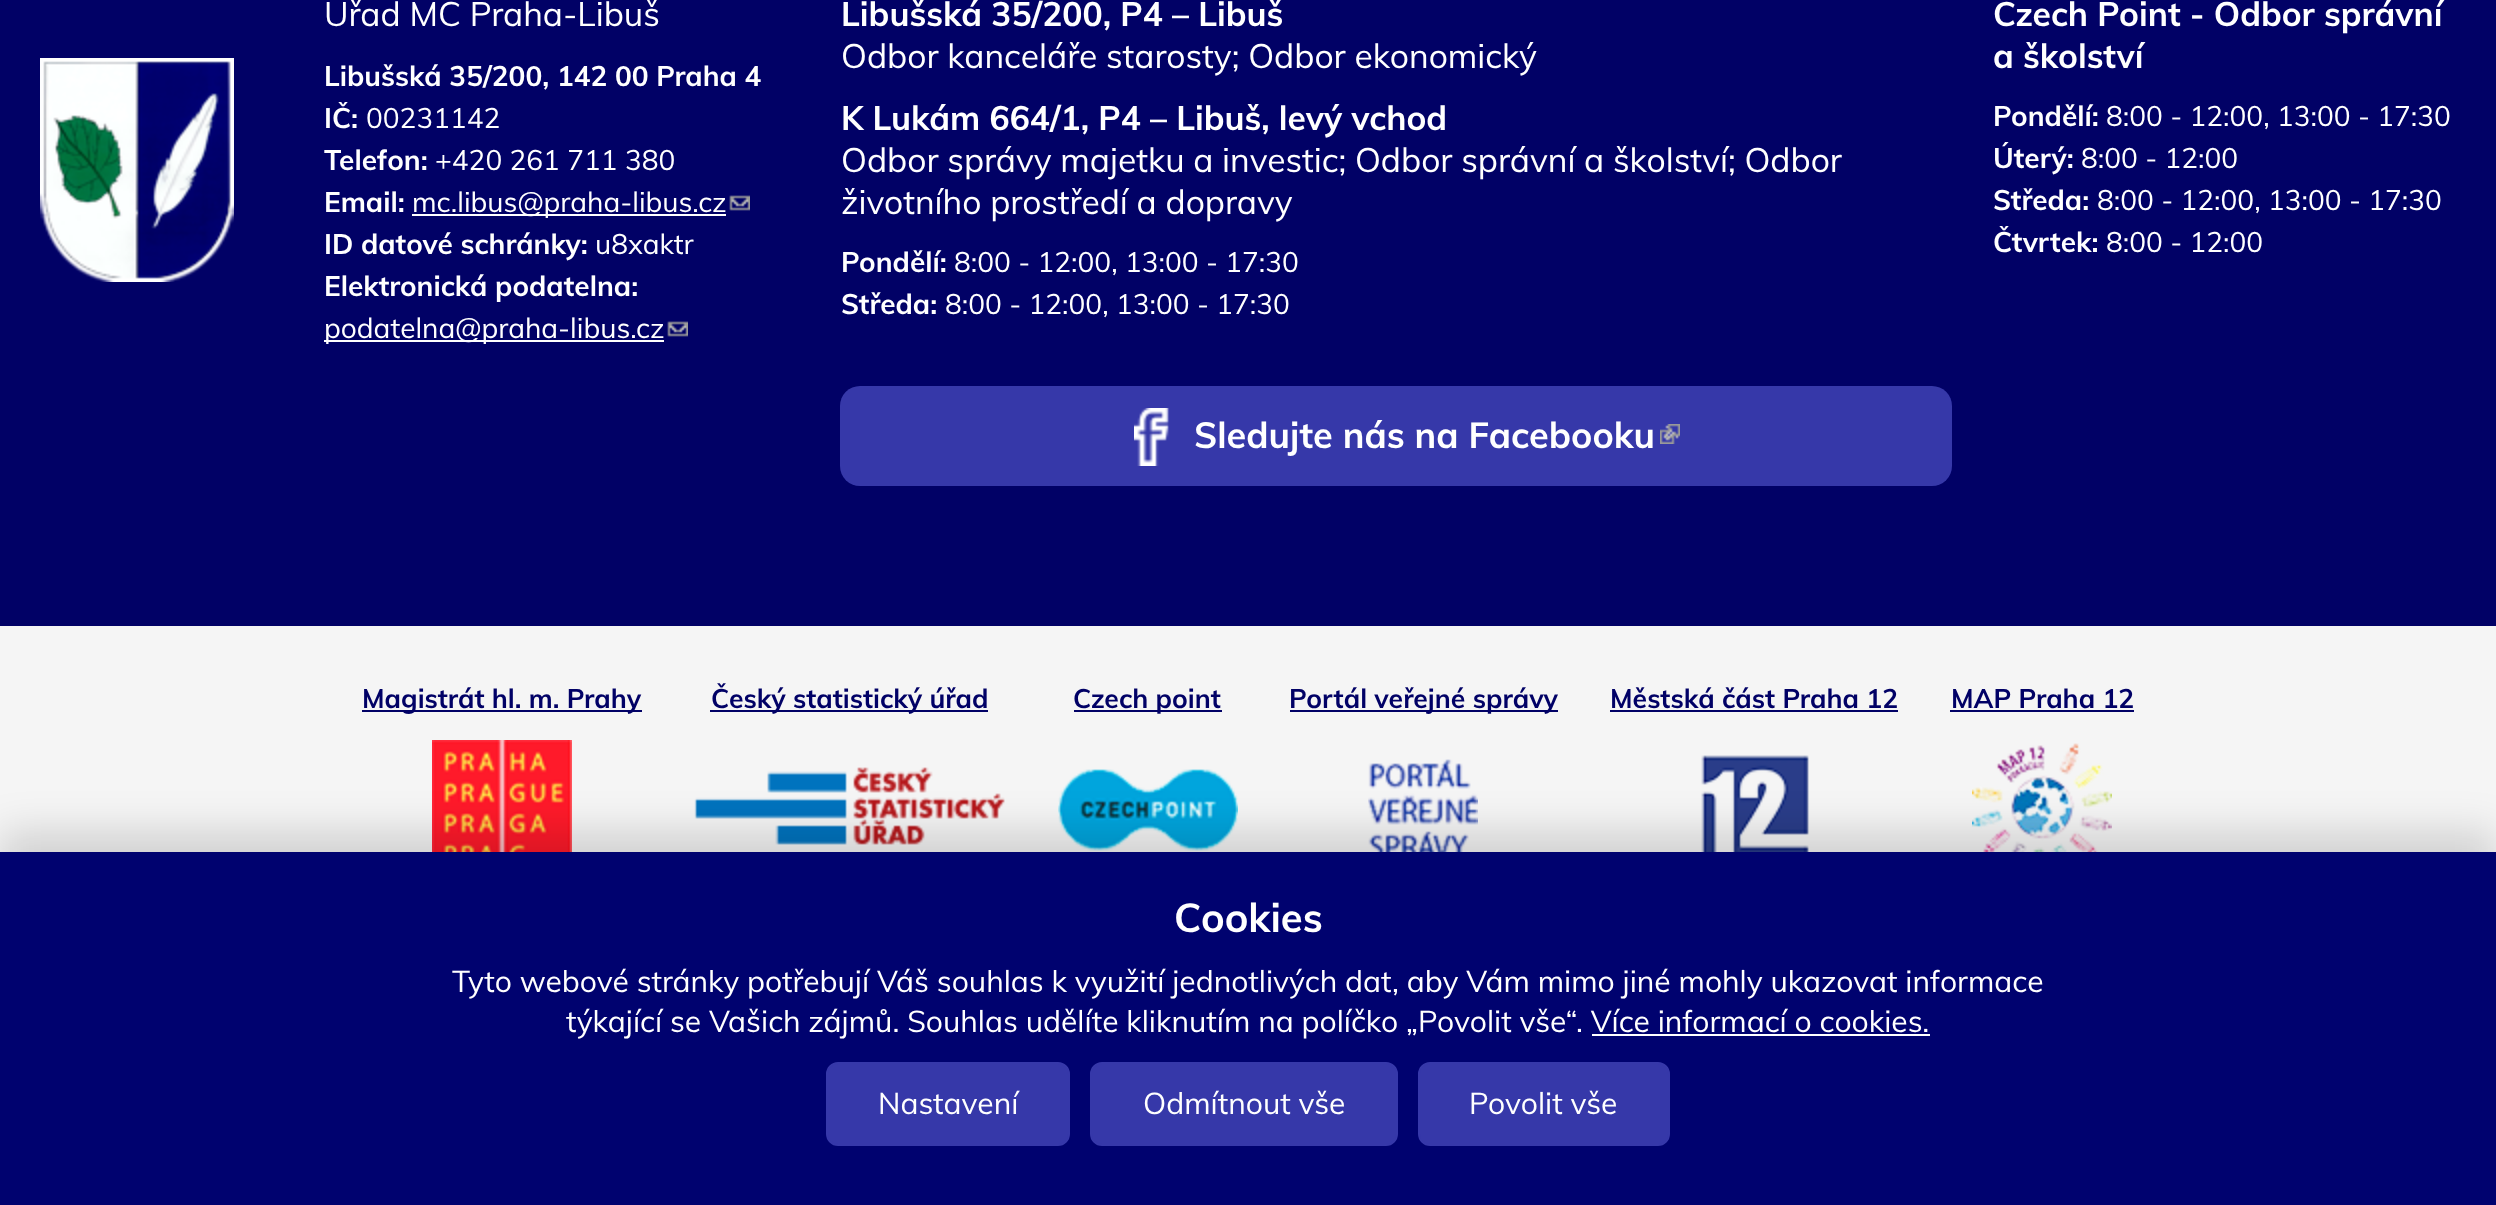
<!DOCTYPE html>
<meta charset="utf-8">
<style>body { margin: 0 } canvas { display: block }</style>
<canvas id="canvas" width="2496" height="1205"></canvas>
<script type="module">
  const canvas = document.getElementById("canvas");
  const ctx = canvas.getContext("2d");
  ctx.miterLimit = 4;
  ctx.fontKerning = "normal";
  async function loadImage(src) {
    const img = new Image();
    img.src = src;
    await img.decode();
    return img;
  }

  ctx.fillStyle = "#010166";
  ctx.fillRect(0, 0, 2496, 1205);
  ctx.drawImage(await loadImage("img1.png"), 40, 58, 194, 224);
  ctx.font = "33.6px Muli";
  ctx.fillStyle = "#ffffff";
  ctx.fillText("Úřad MČ Praha-Libuš", 324, 26);
  ctx.font = "bold 28px Muli";
  ctx.fillText("Libušská 35/200, 142 00 Praha 4", 324, 86);
  ctx.fillText("IČ:", 324, 128);
  ctx.font = "28px Muli";
  ctx.fillText("00231142", 366, 128);
  ctx.font = "bold 28px Muli";
  ctx.fillText("Telefon:", 324, 170);
  ctx.font = "28px Muli";
  ctx.fillText("+420 261 711 380", 435, 170);
  ctx.font = "bold 28px Muli";
  ctx.fillText("Email:", 324, 212);
  ctx.fillRect(412, 214, 314, 2);
  ctx.font = "28px Muli";
  ctx.fillText("mc.libus@praha-libus.cz", 412, 212);
  ctx.drawImage(await loadImage("img2.png"), 729, 195, 21, 16);
  ctx.font = "bold 28px Muli";
  ctx.fillText("ID datové schránky:", 324, 254);
  ctx.font = "28px Muli";
  ctx.fillText("u8xaktr", 595, 254);
  ctx.font = "bold 28px Muli";
  ctx.fillText("Elektronická podatelna:", 324, 296);
  ctx.fillRect(324, 340, 340, 2);
  ctx.font = "28px Muli";
  ctx.fillText("podatelna@praha-libus.cz", 324, 338);
  ctx.drawImage(await loadImage("img2.png"), 667, 321, 21, 16);
  ctx.font = "bold 33.6px Muli";
  ctx.fillText("Libušská 35/200, P4 – Libuš", 841, 26);
  ctx.font = "33.6px Muli";
  ctx.fillText("Odbor kanceláře starosty; Odbor ekonomický", 841, 68);
  ctx.font = "bold 33.6px Muli";
  ctx.fillText("K Lukám 664/1, P4 – Libuš, levý vchod", 841, 130);
  ctx.wordSpacing = "-0.1px";
  ctx.font = "33.6px Muli";
  ctx.fillText("Odbor správy majetku a investic; Odbor správní a školství; Odbor", 841, 172);
  ctx.wordSpacing = "0px";
  ctx.fillText("životního prostředí a dopravy", 841, 214);
  ctx.font = "bold 28px Muli";
  ctx.fillText("Pondělí:", 841, 272);
  ctx.font = "28px Muli";
  ctx.fillText("8:00 - 12:00, 13:00 - 17:30", 954, 272);
  ctx.font = "bold 28px Muli";
  ctx.fillText("Středa:", 841, 314);
  ctx.font = "28px Muli";
  ctx.fillText("8:00 - 12:00, 13:00 - 17:30", 945, 314);
  ctx.fillStyle = "#3638a9";
  ctx.beginPath();
  ctx.roundRect(840, 386, 1112, 100, 20);
  ctx.fill();
  ctx.drawImage(await loadImage("img3.png"), 1134, 408, 35, 58);
  ctx.font = "bold 36px Muli";
  ctx.fillStyle = "#ffffff";
  ctx.fillText("Sledujte nás na Facebooku", 1194, 448);
  ctx.drawImage(await loadImage("img4.png"), 1660, 424, 20, 20);
  ctx.font = "bold 33.6px Muli";
  ctx.fillText("Czech Point - Odbor správní", 1993, 26);
  ctx.fillText("a školství", 1993, 68);
  ctx.font = "bold 28px Muli";
  ctx.fillText("Pondělí:", 1993, 126);
  ctx.font = "28px Muli";
  ctx.fillText("8:00 - 12:00, 13:00 - 17:30", 2106, 126);
  ctx.font = "bold 28px Muli";
  ctx.fillText("Úterý:", 1993, 168);
  ctx.font = "28px Muli";
  ctx.fillText("8:00 - 12:00", 2081, 168);
  ctx.font = "bold 28px Muli";
  ctx.fillText("Středa:", 1993, 210);
  ctx.font = "28px Muli";
  ctx.fillText("8:00 - 12:00, 13:00 - 17:30", 2097, 210);
  ctx.font = "bold 28px Muli";
  ctx.fillText("Čtvrtek:", 1993, 252);
  ctx.font = "28px Muli";
  ctx.fillText("8:00 - 12:00", 2106, 252);
  ctx.fillStyle = "#f5f5f5";
  ctx.fillRect(0, 626, 2496, 226);
  ctx.fillStyle = "#010166";
  ctx.fillRect(362, 710, 280, 2);
  ctx.font = "bold 26.6px Muli";
  ctx.fillText("Magistrát hl. m. Prahy", 362, 708);
  ctx.drawImage(await loadImage("img5.png"), 432, 740, 140, 112);
  ctx.fillRect(710, 710, 278, 2);
  ctx.fillText("Český statistický úřad", 711, 708);
  ctx.drawImage(await loadImage("img6.png"), 694, 767, 311, 78);
  ctx.fillRect(1074, 710, 148, 2);
  ctx.fillText("Czech point", 1073, 708);
  ctx.drawImage(await loadImage("img7.png"), 1058, 769, 180, 82);
  ctx.fillRect(1290, 710, 268, 2);
  ctx.fillText("Portál veřejné správy", 1289, 708);
  ctx.drawImage(await loadImage("img8.png"), 1368, 759, 110, 93);
  ctx.fillText("Městská část Praha 12", 1610, 708);
  ctx.fillRect(1610, 710, 288, 2);
  ctx.drawImage(await loadImage("img9.png"), 1701, 755, 108, 97);
  ctx.fillText("MAP Praha 12", 1951, 708);
  ctx.fillRect(1950, 710, 184, 2);
  ctx.drawImage(await loadImage("img10.png"), 1972, 743, 140, 109);
  ctx.fillStyle = "rgba(0, 0, 0, 0.15)";
  ctx.filter = "blur(20px)";
  ctx.beginPath();
  ctx.rect(0, 832, 2496, 354);
  ctx.fill();
  ctx.filter = "none";
  ctx.fillStyle = "#00026f";
  ctx.fillRect(0, 852, 2496, 353);
  ctx.font = "bold 40px Muli";
  ctx.fillStyle = "#ffffff";
  ctx.fillText("Cookies", 1174, 932);
  ctx.font = "30px Muli";
  ctx.fillText("Tyto webové stránky potřebují Váš souhlas k využití jednotlivých dat, aby Vám mimo jiné mohly ukazovat informace", 452, 992);
  ctx.fillText("týkající se Vašich zájmů. Souhlas udělíte kliknutím na políčko „Povolit vše“. Více informací o cookies.", 566, 1032);
  ctx.fillRect(1592, 1034, 338, 2);
  ctx.fillStyle = "#3638a9";
  ctx.beginPath();
  ctx.roundRect(827, 1063, 242, 82, 11);
  ctx.fill();
  ctx.strokeStyle = "#3638a9";
  ctx.lineWidth = 2;
  ctx.stroke();
  ctx.fillStyle = "#ffffff";
  ctx.fillText("Nastavení", 878, 1114);
  ctx.fillStyle = "#3638a9";
  ctx.beginPath();
  ctx.roundRect(1091, 1063, 306, 82, 11);
  ctx.fill();
  ctx.stroke();
  ctx.fillStyle = "#ffffff";
  ctx.fillText("Odmítnout vše", 1143, 1114);
  ctx.fillStyle = "#3638a9";
  ctx.beginPath();
  ctx.roundRect(1419, 1063, 250, 82, 11);
  ctx.fill();
  ctx.stroke();
  ctx.fillStyle = "#ffffff";
  ctx.fillText("Povolit vše", 1469, 1114);
</script>
